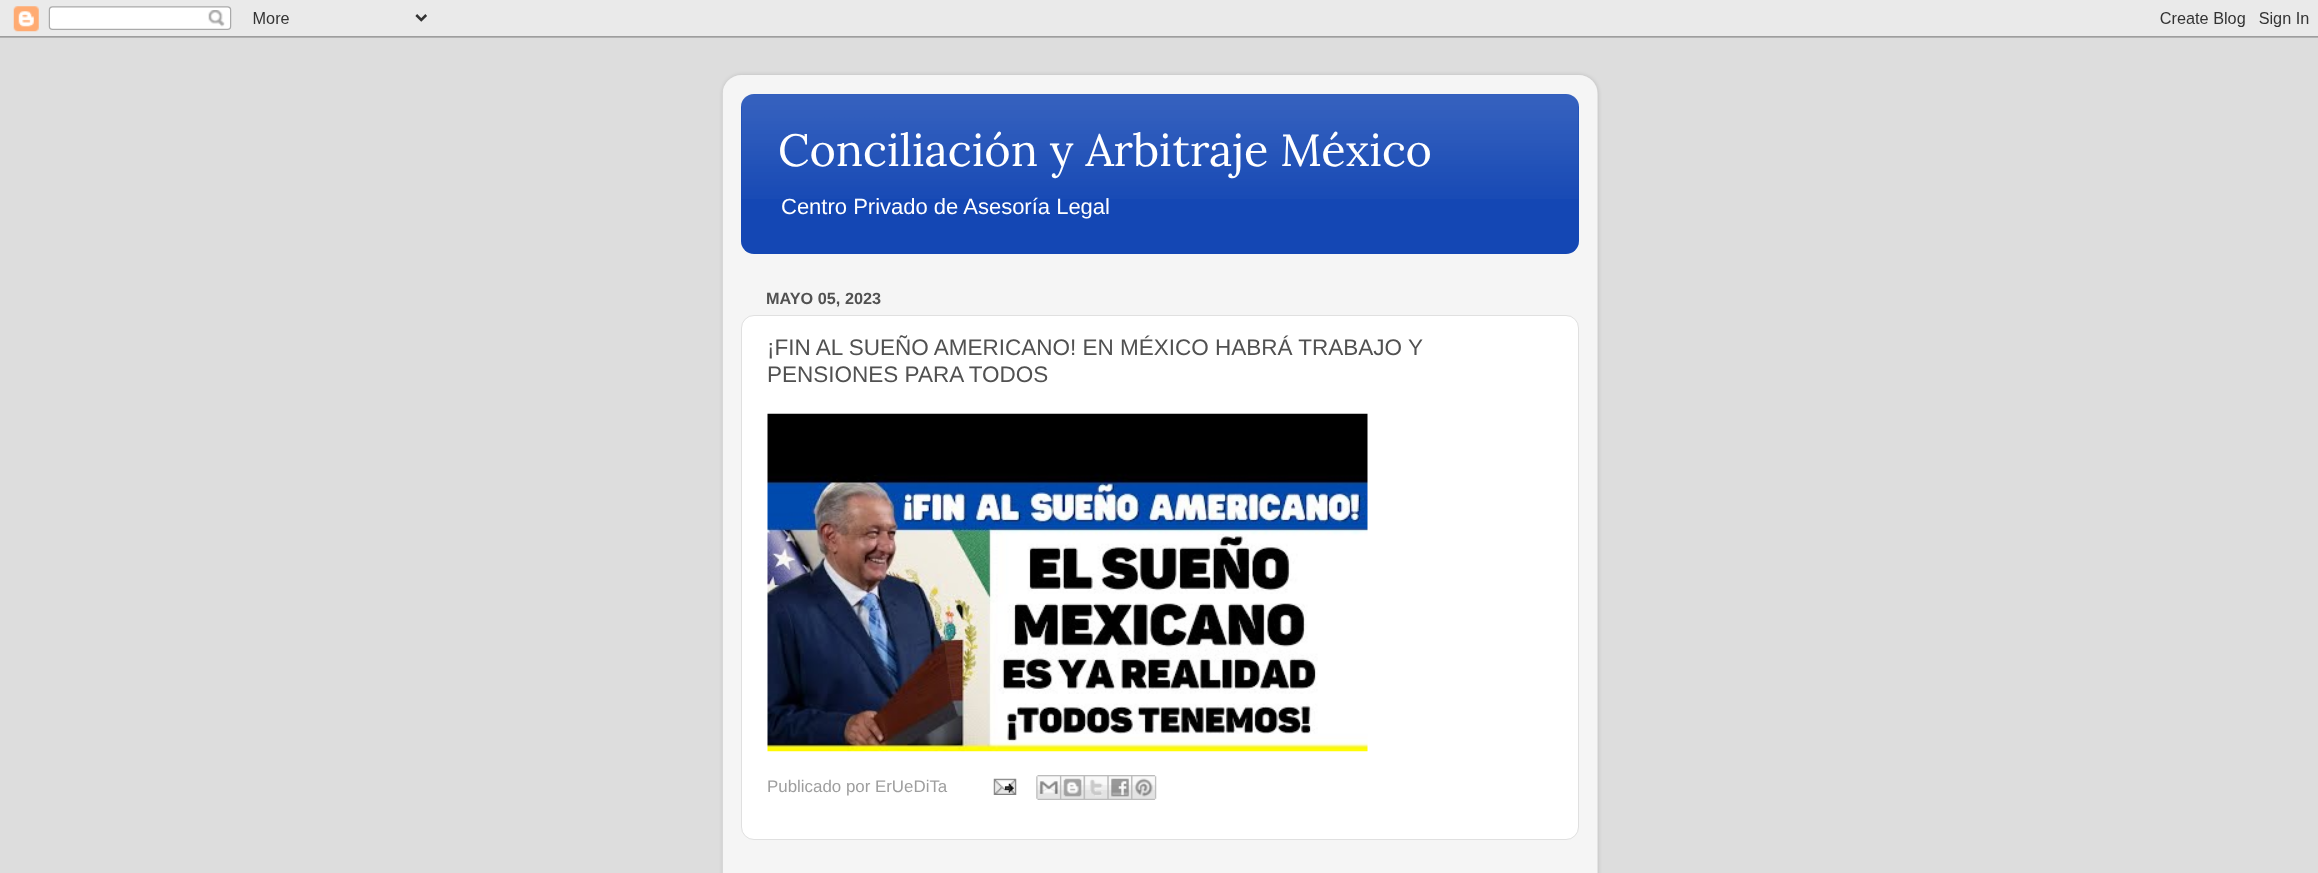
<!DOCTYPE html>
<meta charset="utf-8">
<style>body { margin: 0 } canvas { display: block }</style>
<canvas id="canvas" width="2318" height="873"></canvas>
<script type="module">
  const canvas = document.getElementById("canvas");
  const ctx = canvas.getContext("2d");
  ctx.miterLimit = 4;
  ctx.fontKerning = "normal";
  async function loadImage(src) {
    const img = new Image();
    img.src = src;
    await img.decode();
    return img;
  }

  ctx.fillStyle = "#dddddd";
  ctx.fillRect(0, 0, 2318, 873);
  ctx.drawImage(await loadImage("img1.png"), 0, 0, 2318, 38);
  ctx.save();
  ctx.beginPath();
  ctx.moveTo(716, 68);
  ctx.lineTo(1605, 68);
  ctx.lineTo(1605, 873);
  ctx.lineTo(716, 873);
  ctx.closePath();
  ctx.moveTo(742, 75);
  ctx.lineTo(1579, 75);
  ctx.bezierCurveTo(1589.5, 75, 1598, 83.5, 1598, 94);
  ctx.lineTo(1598, 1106);
  ctx.bezierCurveTo(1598, 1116.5, 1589.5, 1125, 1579, 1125);
  ctx.lineTo(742, 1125);
  ctx.bezierCurveTo(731.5, 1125, 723, 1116.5, 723, 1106);
  ctx.lineTo(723, 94);
  ctx.bezierCurveTo(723, 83.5, 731.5, 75, 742, 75);
  ctx.closePath();
  ctx.clip("evenodd");
  ctx.fillStyle = "rgba(0, 0, 0, 0.15)";
  ctx.filter = "blur(2px)";
  ctx.beginPath();
  ctx.roundRect(723, 75, 875, 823, 19);
  ctx.fill();
  ctx.filter = "none";
  ctx.restore();
  ctx.drawImage(await loadImage("img2.png"), 722, 75, 876, 798);
  ctx.fillStyle = "#1447b4";
  ctx.beginPath();
  ctx.roundRect(741, 94, 838, 160, 13);
  ctx.fill();
  ctx.drawImage(await loadImage("img3.png"), 741, 94, 838, 105);
  ctx.font = "45px Lora";
  ctx.fillStyle = "#ffffff";
  ctx.fillText("Conciliación y Arbitraje México", 778, 166);
  ctx.font = "22px Liberation Sans";
  ctx.fillText("Centro Privado de Asesoría Legal", 781, 214);
  ctx.font = "bold 16.25px Liberation Sans";
  ctx.fillStyle = "#515151";
  ctx.fillText("MAYO 05, 2023", 766, 304);
  ctx.fillStyle = "#ffffff";
  ctx.beginPath();
  ctx.roundRect(741.5, 315.5, 837, 524, 12.5);
  ctx.fill();
  ctx.strokeStyle = "#e0e0e0";
  ctx.stroke();
  ctx.font = "22.5px Liberation Sans";
  ctx.fillStyle = "#515151";
  ctx.fillText("¡FIN AL SUEÑO AMERICANO! EN MÉXICO HABRÁ TRABAJO Y", 767, 355);
  ctx.fillText("PENSIONES PARA TODOS", 767, 382);
  ctx.drawImage(await loadImage("img4.png"), 767, 413, 601, 339);
  ctx.font = "16.9px Liberation Sans";
  ctx.fillStyle = "#9e9e9e";
  ctx.fillText("Publicado por ErUeDiTa", 767, 792);
  ctx.drawImage(await loadImage("img5.png"), 993, 778, 24, 17);
  ctx.drawImage(await loadImage("img6.png"), 1036, 775, 24, 25);
  ctx.drawImage(await loadImage("img7.png"), 1060, 775, 24, 25);
  ctx.drawImage(await loadImage("img8.png"), 1083, 775, 25, 25);
  ctx.drawImage(await loadImage("img9.png"), 1107, 775, 25, 25);
  ctx.drawImage(await loadImage("img10.png"), 1131, 775, 26, 25);
</script>
